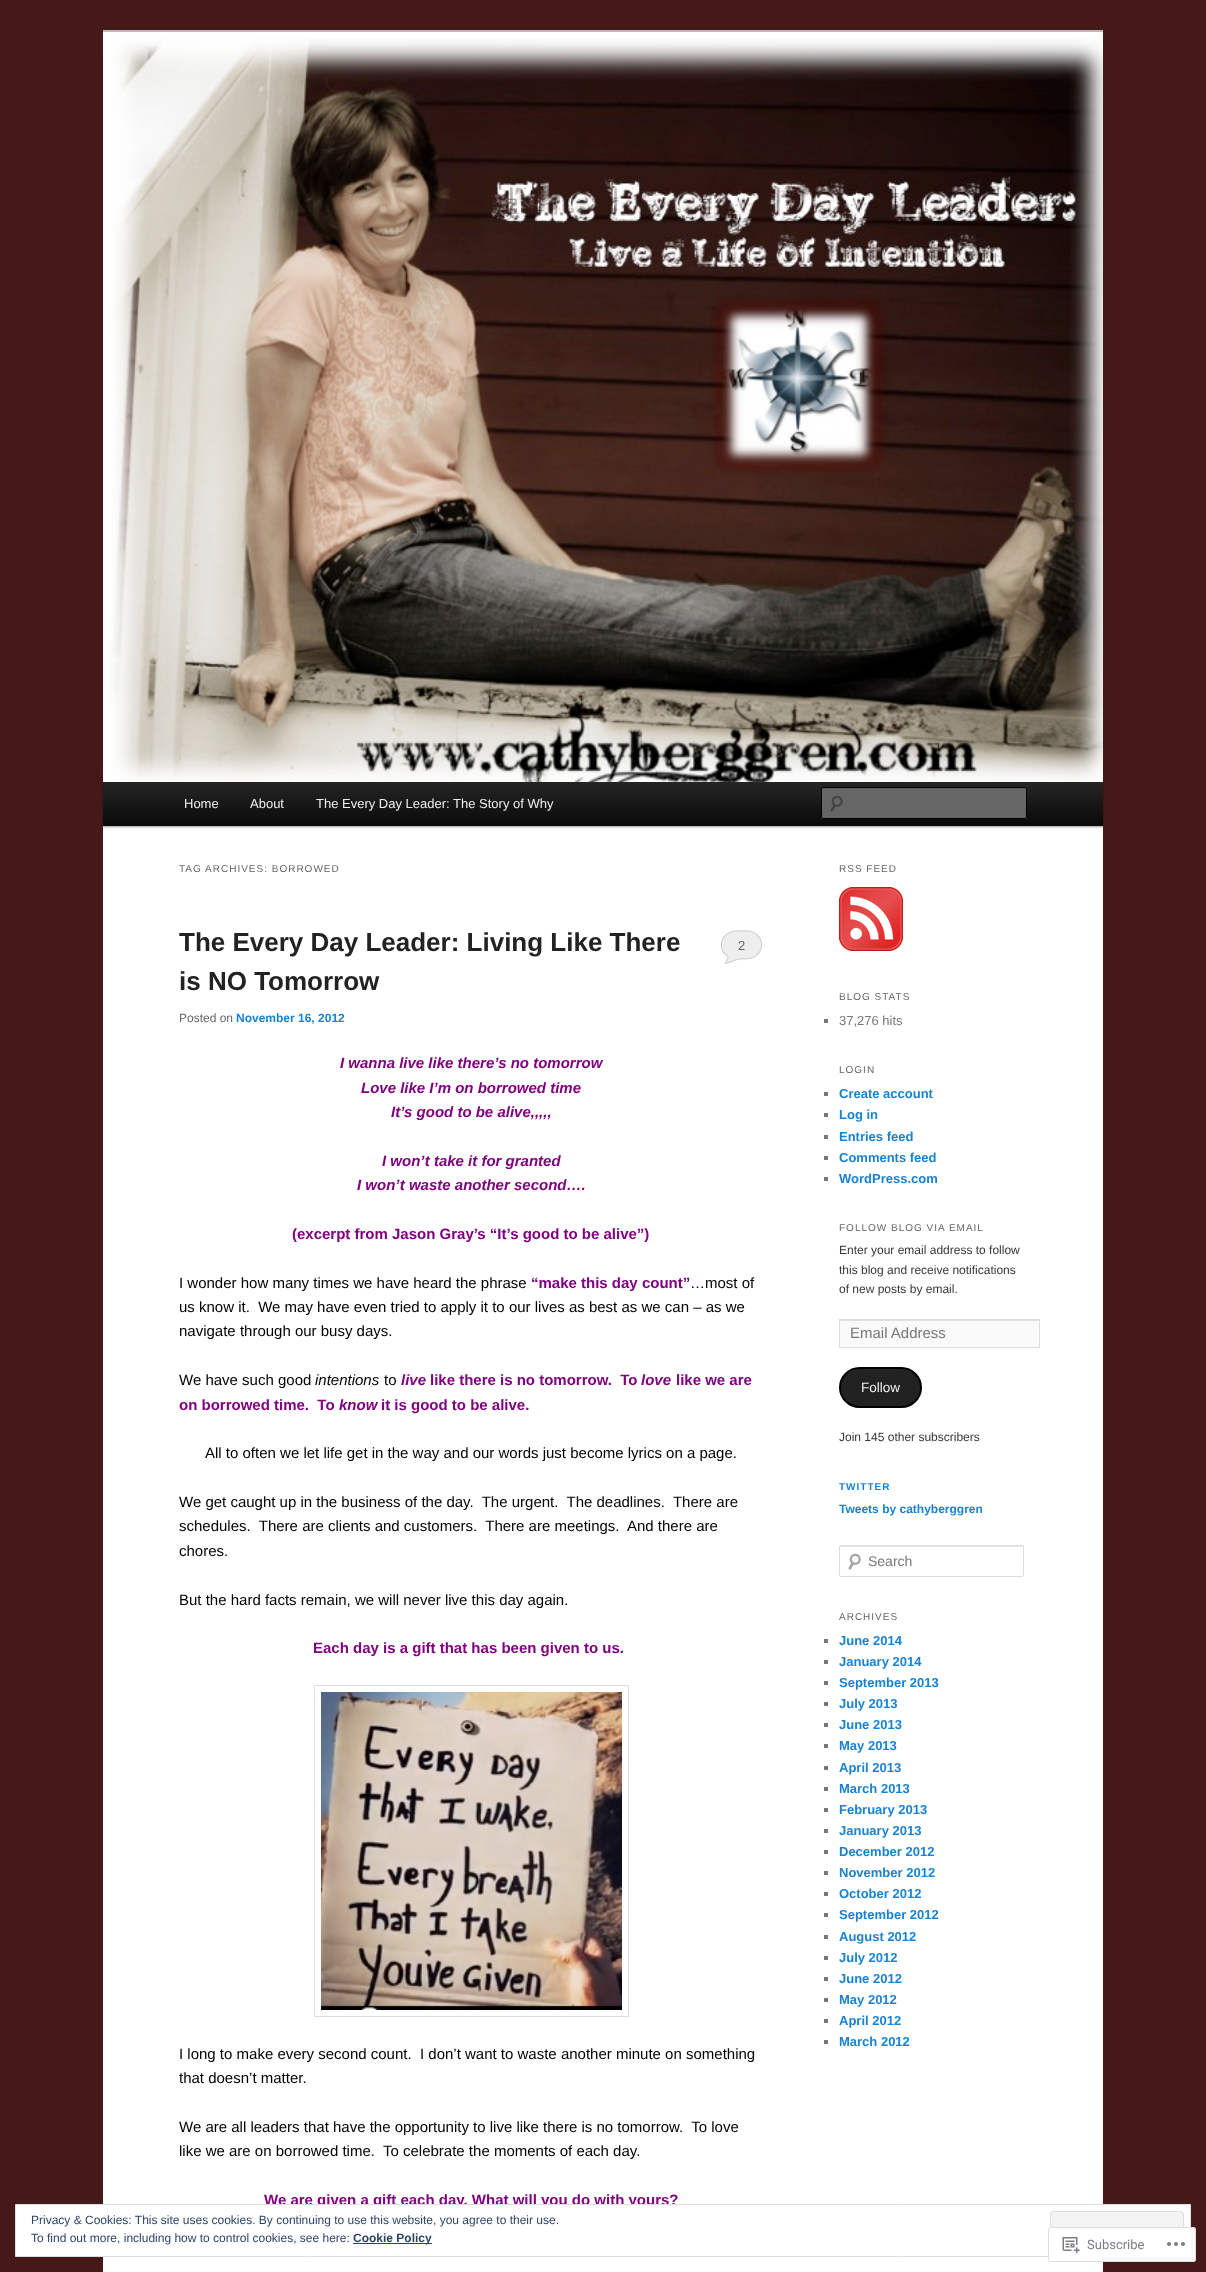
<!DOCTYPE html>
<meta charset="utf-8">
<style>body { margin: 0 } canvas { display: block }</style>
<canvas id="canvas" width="1206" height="2272"></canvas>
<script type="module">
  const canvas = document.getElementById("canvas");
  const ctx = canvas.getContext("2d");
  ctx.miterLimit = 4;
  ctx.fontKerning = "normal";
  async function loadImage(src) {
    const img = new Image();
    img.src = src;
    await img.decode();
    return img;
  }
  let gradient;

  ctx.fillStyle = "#461919";
  ctx.fillRect(0, 0, 1206, 2272);
  ctx.fillStyle = "#ffffff";
  ctx.fillRect(103, 32, 1000, 2240);
  ctx.fillStyle = "#bbbbbb";
  ctx.fillRect(103, 30, 1000, 2);
  ctx.fillStyle = "rgba(0, 0, 0, 0.4)";
  ctx.filter = "blur(1px)";
  ctx.beginPath();
  ctx.rect(103, 783, 1000, 44);
  ctx.fill();
  ctx.filter = "none";
  ctx.drawImage(await loadImage("img1.png"), 103, 38, 1000, 744);
  gradient = ctx.createLinearGradient(603, 782, 603, 826);
  gradient.addColorStop(0, "#252525");
  gradient.addColorStop(1, "#0a0a0a");
  ctx.fillStyle = gradient;
  ctx.fillRect(103, 782, 1000, 44);
  ctx.font = "13px Liberation Sans";
  ctx.fillStyle = "#eeeeee";
  ctx.fillText("Home", 184, 808);
  ctx.fillText("About", 250, 808);
  ctx.fillText("The Every Day Leader: The Story of Why", 316, 808);
  ctx.fillStyle = "#666666";
  ctx.beginPath();
  ctx.roundRect(821, 787, 206, 32, 2);
  ctx.fill();
  ctx.drawImage(await loadImage("img2.png"), 830, 795, 13, 17);
  ctx.fillStyle = "#5c5c5c";
  ctx.beginPath();
  ctx.moveTo(823, 789);
  ctx.lineTo(1026, 789);
  ctx.lineTo(1026, 790);
  ctx.lineTo(1026, 788);
  ctx.lineTo(1025, 788);
  ctx.lineTo(823, 788);
  ctx.bezierCurveTo(822, 788, 822, 789, 822, 790);
  ctx.bezierCurveTo(822, 789, 822, 789, 823, 789);
  ctx.closePath();
  ctx.fill();
  ctx.beginPath();
  ctx.roundRect(821.5, 787.5, 205, 31, 1.5);
  ctx.strokeStyle = "#000000";
  ctx.stroke();
  ctx.letterSpacing = "1px";
  ctx.font = "10px Liberation Sans";
  ctx.fillStyle = "#666666";
  ctx.fillText("TAG ARCHIVES: BORROWED", 179, 872);
  ctx.letterSpacing = "0px";
  ctx.font = "bold 26px Liberation Sans";
  ctx.fillStyle = "#222222";
  ctx.fillText("The Every Day Leader: Living Like There", 179, 951);
  ctx.fillText("is NO Tomorrow", 179, 990);
  ctx.fillStyle = "#eeeeee";
  ctx.fillRect(721, 930, 41, 34);
  ctx.drawImage(await loadImage("img3.png"), 720, 928, 43, 36);
  ctx.font = "13px Liberation Sans";
  ctx.fillStyle = "#666666";
  ctx.fillText("2", 738, 950);
  ctx.font = "12px Liberation Sans";
  ctx.fillText("Posted on", 179, 1022);
  ctx.font = "bold 12px Liberation Sans";
  ctx.fillStyle = "#1982d1";
  ctx.fillText("November 16, 2012", 236, 1022);
  ctx.font = "italic bold 15px Liberation Sans";
  ctx.fillStyle = "#800080";
  ctx.fillText("I wanna live like there’s no tomorrow", 340, 1068);
  ctx.fillText("Love like I’m on borrowed time", 361, 1093);
  ctx.fillText("It’s good to be alive,,,,,", 391, 1117);
  ctx.fillText("I won’t take it for granted", 382, 1166);
  ctx.fillText("I won’t waste another second….", 357, 1190);
  ctx.font = "bold 15px Liberation Sans";
  ctx.fillText("(excerpt from Jason Gray’s “It’s good to be alive”)", 292, 1239);
  ctx.font = "15px Liberation Sans";
  ctx.fillStyle = "#000000";
  ctx.fillText("I wonder how many times we have heard the phrase", 179, 1288);
  ctx.font = "bold 15px Liberation Sans";
  ctx.fillStyle = "#800080";
  ctx.fillText("“make this day count”", 531, 1288);
  ctx.font = "15px Liberation Sans";
  ctx.fillStyle = "#000000";
  ctx.fillText("…most of", 690, 1288);
  ctx.fillText("us know it.  We may have even tried to apply it to our lives as best as we can – as we", 179, 1312);
  ctx.fillText("navigate through our busy days.", 179, 1336);
  ctx.fillText("We have such good", 179, 1385);
  ctx.font = "italic 15px Liberation Sans";
  ctx.fillText("intentions", 315, 1385);
  ctx.font = "15px Liberation Sans";
  ctx.fillText("to", 384, 1385);
  ctx.font = "italic bold 15px Liberation Sans";
  ctx.fillStyle = "#800080";
  ctx.fillText("live", 401, 1385);
  ctx.font = "bold 15px Liberation Sans";
  ctx.fillText("like there is no tomorrow.  To", 430, 1385);
  ctx.font = "italic bold 15px Liberation Sans";
  ctx.fillText("love", 641, 1385);
  ctx.font = "bold 15px Liberation Sans";
  ctx.fillText("like we are", 676, 1385);
  ctx.fillText("on borrowed time.  To", 179, 1410);
  ctx.font = "italic bold 15px Liberation Sans";
  ctx.fillText("know", 339, 1410);
  ctx.font = "bold 15px Liberation Sans";
  ctx.fillText("it is good to be alive.", 381, 1410);
  ctx.font = "15px Liberation Sans";
  ctx.fillStyle = "#000000";
  ctx.fillText("All to often we let life get in the way and our words just become lyrics on a page.", 205, 1458);
  ctx.fillText("We get caught up in the business of the day.  The urgent.  The deadlines.  There are", 179, 1507);
  ctx.fillText("schedules.  There are clients and customers.  There are meetings.  And there are", 179, 1531);
  ctx.fillText("chores.", 179, 1556);
  ctx.fillText("But the hard facts remain, we will never live this day again.", 179, 1605);
  ctx.font = "bold 15px Liberation Sans";
  ctx.fillStyle = "#800080";
  ctx.fillText("Each day is a gift that has been given to us.", 313, 1653);
  ctx.strokeStyle = "#dddddd";
  ctx.strokeRect(314.5, 1685.5, 314, 331);
  ctx.drawImage(await loadImage("img4.png"), 321, 1692, 301, 318);
  ctx.font = "15px Liberation Sans";
  ctx.fillStyle = "#000000";
  ctx.fillText("I long to make every second count.  I don’t want to waste another minute on something", 179, 2059);
  ctx.fillText("that doesn’t matter.", 179, 2083);
  ctx.fillText("We are all leaders that have the opportunity to live like there is no tomorrow.  To love", 179, 2132);
  ctx.fillText("like we are on borrowed time.  To celebrate the moments of each day.", 179, 2156);
  ctx.font = "bold 15px Liberation Sans";
  ctx.fillStyle = "#800080";
  ctx.fillText("We are given a gift each day. What will you do with yours?", 264, 2205);
  ctx.letterSpacing = "1px";
  ctx.font = "10px Liberation Sans";
  ctx.fillStyle = "#666666";
  ctx.fillText("RSS FEED", 839, 872);
  ctx.drawImage(await loadImage("img5.png"), 839, 887, 64, 64);
  ctx.fillText("BLOG STATS", 839, 1000);
  ctx.fillStyle = "#777777";
  ctx.fillRect(824, 1019, 4, 4);
  ctx.letterSpacing = "0px";
  ctx.font = "13px Liberation Sans";
  ctx.fillText("37,276 hits", 839, 1025);
  ctx.letterSpacing = "1px";
  ctx.font = "10px Liberation Sans";
  ctx.fillStyle = "#666666";
  ctx.fillText("LOGIN", 839, 1073);
  ctx.fillStyle = "#777777";
  ctx.fillRect(824, 1092, 4, 4);
  ctx.letterSpacing = "0px";
  ctx.font = "bold 13px Liberation Sans";
  ctx.fillStyle = "#1982d1";
  ctx.fillText("Create account", 839, 1098);
  ctx.fillStyle = "#777777";
  ctx.fillRect(824, 1113, 4, 4);
  ctx.fillStyle = "#1982d1";
  ctx.fillText("Log in", 839, 1119);
  ctx.fillStyle = "#777777";
  ctx.fillRect(824, 1135, 4, 4);
  ctx.fillStyle = "#1982d1";
  ctx.fillText("Entries feed", 839, 1141);
  ctx.fillStyle = "#777777";
  ctx.fillRect(824, 1156, 4, 4);
  ctx.fillStyle = "#1982d1";
  ctx.fillText("Comments feed", 839, 1162);
  ctx.fillStyle = "#777777";
  ctx.fillRect(824, 1177, 4, 4);
  ctx.fillStyle = "#1982d1";
  ctx.fillText("WordPress.com", 839, 1183);
  ctx.letterSpacing = "1px";
  ctx.font = "10px Liberation Sans";
  ctx.fillStyle = "#666666";
  ctx.fillText("FOLLOW BLOG VIA EMAIL", 839, 1231);
  ctx.letterSpacing = "0px";
  ctx.font = "12px Liberation Sans";
  ctx.fillStyle = "#373737";
  ctx.fillText("Enter your email address to follow", 839, 1254);
  ctx.fillText("this blog and receive notifications", 839, 1274);
  ctx.fillText("of new posts by email.", 839, 1293);
  ctx.fillStyle = "#fafafa";
  ctx.fillRect(840, 1321, 199, 26);
  ctx.fillStyle = "#e1e1e1";
  ctx.fillRect(840, 1320, 199, 1);
  ctx.strokeRect(839.5, 1319.5, 200, 28);
  ctx.font = "15px Liberation Sans";
  ctx.fillStyle = "#777777";
  ctx.fillText("Email Address", 850, 1338);
  ctx.fillStyle = "#222222";
  ctx.beginPath();
  ctx.roundRect(840, 1368, 81, 39, 19.5);
  ctx.fill();
  ctx.strokeStyle = "#000000";
  ctx.lineWidth = 2;
  ctx.stroke();
  ctx.font = "13.5px Liberation Sans";
  ctx.fillStyle = "#eeeeee";
  ctx.fillText("Follow", 861, 1392);
  ctx.font = "12px Liberation Sans";
  ctx.fillStyle = "#373737";
  ctx.fillText("Join 145 other subscribers", 839, 1441);
  ctx.letterSpacing = "1px";
  ctx.font = "bold 10px Liberation Sans";
  ctx.fillStyle = "#1982d1";
  ctx.fillText("TWITTER", 839, 1490);
  ctx.letterSpacing = "0px";
  ctx.font = "bold 12px Liberation Sans";
  ctx.fillText("Tweets by cathyberggren", 839, 1513);
  ctx.drawImage(await loadImage("img6.png"), 848, 1553, 13, 17);
  ctx.fillStyle = "#e6e6e6";
  ctx.beginPath();
  ctx.moveTo(841, 1547);
  ctx.lineTo(1023, 1547);
  ctx.lineTo(1023, 1548);
  ctx.bezierCurveTo(1023, 1547, 1023, 1546, 1022, 1546);
  ctx.lineTo(840, 1546);
  ctx.lineTo(840, 1548);
  ctx.bezierCurveTo(840, 1547, 840, 1547, 841, 1547);
  ctx.closePath();
  ctx.fill();
  ctx.beginPath();
  ctx.roundRect(839.5, 1545.5, 184, 31, 1.5);
  ctx.strokeStyle = "#dddddd";
  ctx.lineWidth = 1;
  ctx.stroke();
  ctx.font = "14px Liberation Sans";
  ctx.fillStyle = "#777777";
  ctx.fillText("Search", 868, 1566);
  ctx.letterSpacing = "1px";
  ctx.font = "10px Liberation Sans";
  ctx.fillStyle = "#666666";
  ctx.fillText("ARCHIVES", 839, 1620);
  ctx.fillStyle = "#777777";
  ctx.fillRect(824, 1639, 4, 4);
  ctx.letterSpacing = "0px";
  ctx.font = "bold 13px Liberation Sans";
  ctx.fillStyle = "#1982d1";
  ctx.fillText("June 2014", 839, 1645);
  ctx.fillStyle = "#777777";
  ctx.fillRect(824, 1660, 4, 4);
  ctx.fillStyle = "#1982d1";
  ctx.fillText("January 2014", 839, 1666);
  ctx.fillStyle = "#777777";
  ctx.fillRect(824, 1681, 4, 4);
  ctx.fillStyle = "#1982d1";
  ctx.fillText("September 2013", 839, 1687);
  ctx.fillStyle = "#777777";
  ctx.fillRect(824, 1702, 4, 4);
  ctx.fillStyle = "#1982d1";
  ctx.fillText("July 2013", 839, 1708);
  ctx.fillStyle = "#777777";
  ctx.fillRect(824, 1723, 4, 4);
  ctx.fillStyle = "#1982d1";
  ctx.fillText("June 2013", 839, 1729);
  ctx.fillStyle = "#777777";
  ctx.fillRect(824, 1744, 4, 4);
  ctx.fillStyle = "#1982d1";
  ctx.fillText("May 2013", 839, 1750);
  ctx.fillStyle = "#777777";
  ctx.fillRect(824, 1766, 4, 4);
  ctx.fillStyle = "#1982d1";
  ctx.fillText("April 2013", 839, 1772);
  ctx.fillStyle = "#777777";
  ctx.fillRect(824, 1787, 4, 4);
  ctx.fillStyle = "#1982d1";
  ctx.fillText("March 2013", 839, 1793);
  ctx.fillStyle = "#777777";
  ctx.fillRect(824, 1808, 4, 4);
  ctx.fillStyle = "#1982d1";
  ctx.fillText("February 2013", 839, 1814);
  ctx.fillStyle = "#777777";
  ctx.fillRect(824, 1829, 4, 4);
  ctx.fillStyle = "#1982d1";
  ctx.fillText("January 2013", 839, 1835);
  ctx.fillStyle = "#777777";
  ctx.fillRect(824, 1850, 4, 4);
  ctx.fillStyle = "#1982d1";
  ctx.fillText("December 2012", 839, 1856);
  ctx.fillStyle = "#777777";
  ctx.fillRect(824, 1871, 4, 4);
  ctx.fillStyle = "#1982d1";
  ctx.fillText("November 2012", 839, 1877);
  ctx.fillStyle = "#777777";
  ctx.fillRect(824, 1892, 4, 4);
  ctx.fillStyle = "#1982d1";
  ctx.fillText("October 2012", 839, 1898);
  ctx.fillStyle = "#777777";
  ctx.fillRect(824, 1913, 4, 4);
  ctx.fillStyle = "#1982d1";
  ctx.fillText("September 2012", 839, 1919);
  ctx.fillStyle = "#777777";
  ctx.fillRect(824, 1935, 4, 4);
  ctx.fillStyle = "#1982d1";
  ctx.fillText("August 2012", 839, 1941);
  ctx.fillStyle = "#777777";
  ctx.fillRect(824, 1956, 4, 4);
  ctx.fillStyle = "#1982d1";
  ctx.fillText("July 2012", 839, 1962);
  ctx.fillStyle = "#777777";
  ctx.fillRect(824, 1977, 4, 4);
  ctx.fillStyle = "#1982d1";
  ctx.fillText("June 2012", 839, 1983);
  ctx.fillStyle = "#777777";
  ctx.fillRect(824, 1998, 4, 4);
  ctx.fillStyle = "#1982d1";
  ctx.fillText("May 2012", 839, 2004);
  ctx.fillStyle = "#777777";
  ctx.fillRect(824, 2019, 4, 4);
  ctx.fillStyle = "#1982d1";
  ctx.fillText("April 2012", 839, 2025);
  ctx.fillStyle = "#777777";
  ctx.fillRect(824, 2040, 4, 4);
  ctx.fillStyle = "#1982d1";
  ctx.fillText("March 2012", 839, 2046);
  ctx.fillStyle = "#ffffff";
  ctx.beginPath();
  ctx.rect(15.5, 2204.5, 1175, 52);
  ctx.fill();
  ctx.strokeStyle = "#dedede";
  ctx.stroke();
  ctx.font = "12px Liberation Sans";
  ctx.fillStyle = "#2e4467";
  ctx.fillText("Privacy & Cookies: This site uses cookies. By continuing to use this website, you agree to their use.", 31, 2224);
  ctx.fillStyle = "#f3f3f3";
  ctx.beginPath();
  ctx.roundRect(1050.5, 2211.5, 133, 38, 2.5);
  ctx.fill();
  ctx.stroke();
  ctx.fillStyle = "#2e4467";
  ctx.fillText("To find out more, including how to control cookies, see here:", 31, 2242);
  ctx.fillRect(353, 2243, 79, 1);
  ctx.font = "bold 12px Liberation Sans";
  ctx.fillText("Cookie Policy", 353, 2242);
  ctx.fillStyle = "rgba(255, 255, 255, 0.98)";
  ctx.beginPath();
  ctx.roundRect(1048, 2227, 148, 35, 3);
  ctx.fill();
  ctx.beginPath();
  ctx.roundRect(1048.5, 2227.5, 147, 34, 2.5);
  ctx.strokeStyle = "rgba(220, 220, 222, 0.98)";
  ctx.stroke();
  ctx.drawImage(await loadImage("img7.png"), 1062, 2237, 18, 17);
  ctx.font = "13px Roboto";
  ctx.fillStyle = "#7b7f84";
  ctx.fillText("Subscribe", 1087, 2249);
  ctx.drawImage(await loadImage("img8.png"), 1167, 2242, 18, 4);
</script>
